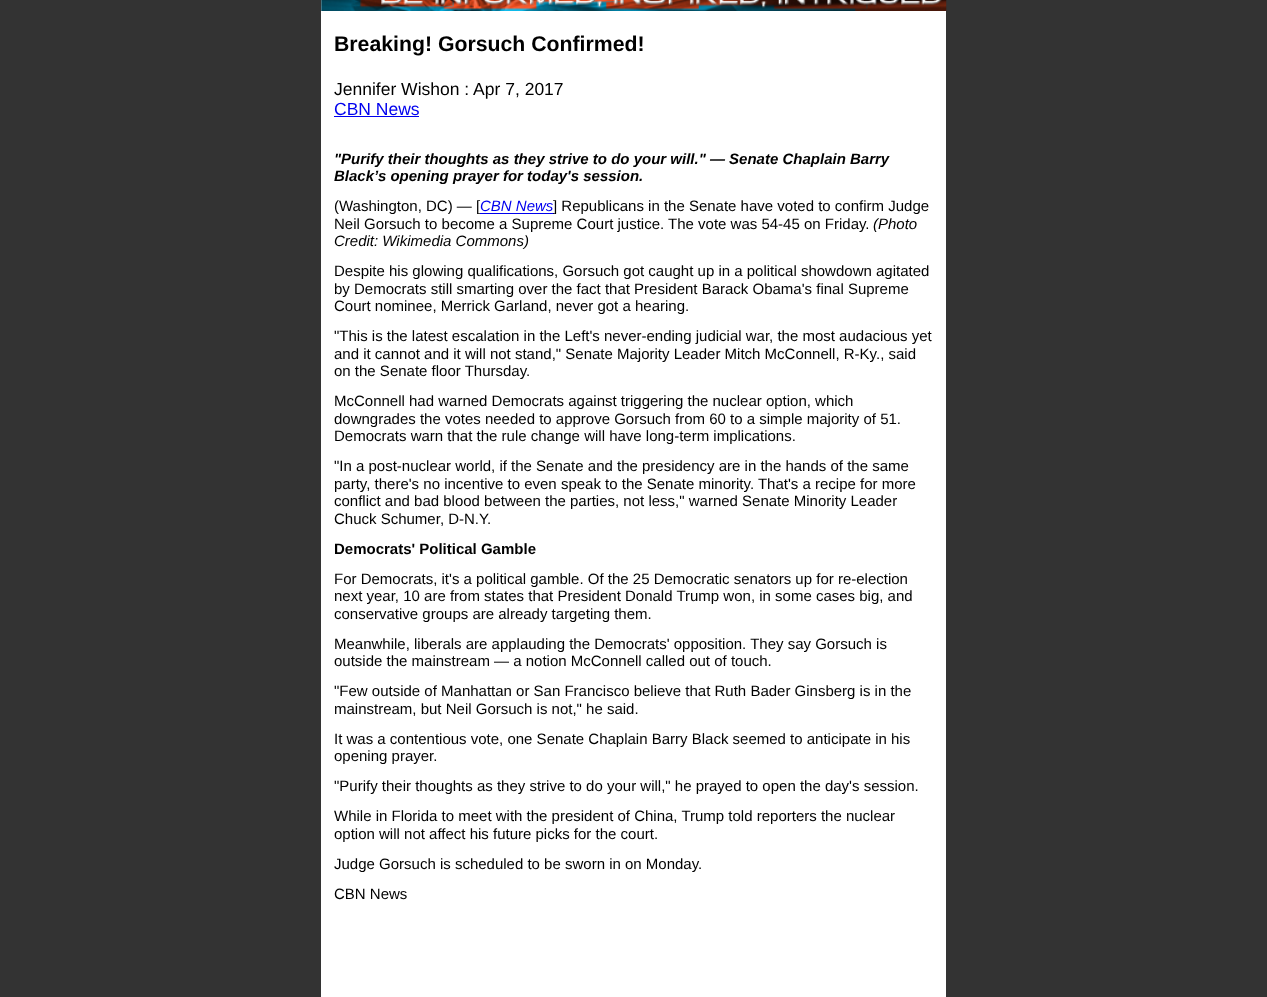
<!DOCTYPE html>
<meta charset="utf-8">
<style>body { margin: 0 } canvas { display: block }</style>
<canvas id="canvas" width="1267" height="997"></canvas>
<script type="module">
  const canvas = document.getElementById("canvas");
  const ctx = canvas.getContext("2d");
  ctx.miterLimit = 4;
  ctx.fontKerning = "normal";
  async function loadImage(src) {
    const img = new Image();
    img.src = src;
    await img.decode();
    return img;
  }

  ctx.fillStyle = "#333333";
  ctx.fillRect(0, 0, 1267, 997);
  ctx.fillStyle = "#ffffff";
  ctx.fillRect(321, 0, 625, 997);
  ctx.drawImage(await loadImage("img1.png"), 321, 0, 626, 11);
  ctx.font = "bold 21.25px Liberation Sans";
  ctx.fillStyle = "#000000";
  ctx.fillText("Breaking! Gorsuch Confirmed!", 334, 51);
  ctx.font = "17.5px Liberation Sans";
  ctx.fillText("Jennifer Wishon : Apr 7, 2017", 334, 95);
  ctx.fillStyle = "#0000ee";
  ctx.fillText("CBN News", 334, 115);
  ctx.fillRect(334, 116, 85, 1);
  ctx.font = "italic bold 15px Liberation Sans";
  ctx.fillStyle = "#000000";
  ctx.fillText("\"Purify their thoughts as they strive to do your will.\" — Senate Chaplain Barry", 334, 164);
  ctx.fillText("Black’s opening prayer for today's session.", 334, 181);
  ctx.font = "15px Liberation Sans";
  ctx.fillText("(Washington, DC) — [", 334, 211);
  ctx.font = "italic 15px Liberation Sans";
  ctx.fillStyle = "#0000ee";
  ctx.fillText("CBN News", 480, 211);
  ctx.fillRect(480, 213, 74, 1);
  ctx.font = "15px Liberation Sans";
  ctx.fillStyle = "#000000";
  ctx.fillText("] Republicans in the Senate have voted to confirm Judge", 553, 211);
  ctx.fillText("Neil Gorsuch to become a Supreme Court justice. The vote was 54-45 on Friday.", 334, 229);
  ctx.font = "italic 15px Liberation Sans";
  ctx.fillText("(Photo", 873, 229);
  ctx.fillText("Credit: Wikimedia Commons)", 334, 246);
  ctx.font = "15px Liberation Sans";
  ctx.fillText("Despite his glowing qualifications, Gorsuch got caught up in a political showdown agitated", 334, 276);
  ctx.fillText("by Democrats still smarting over the fact that President Barack Obama's final Supreme", 334, 294);
  ctx.fillText("Court nominee, Merrick Garland, never got a hearing.", 334, 311);
  ctx.fillText("\"This is the latest escalation in the Left's never-ending judicial war, the most audacious yet", 334, 341);
  ctx.fillText("and it cannot and it will not stand,\" Senate Majority Leader Mitch McConnell, R-Ky., said", 334, 359);
  ctx.fillText("on the Senate floor Thursday.", 334, 376);
  ctx.fillText("McConnell had warned Democrats against triggering the nuclear option, which", 334, 406);
  ctx.fillText("downgrades the votes needed to approve Gorsuch from 60 to a simple majority of 51.", 334, 424);
  ctx.fillText("Democrats warn that the rule change will have long-term implications.", 334, 441);
  ctx.fillText("\"In a post-nuclear world, if the Senate and the presidency are in the hands of the same", 334, 471);
  ctx.fillText("party, there's no incentive to even speak to the Senate minority. That's a recipe for more", 334, 489);
  ctx.fillText("conflict and bad blood between the parties, not less,\" warned Senate Minority Leader", 334, 506);
  ctx.fillText("Chuck Schumer, D-N.Y.", 334, 524);
  ctx.font = "bold 15px Liberation Sans";
  ctx.fillText("Democrats' Political Gamble", 334, 554);
  ctx.font = "15px Liberation Sans";
  ctx.fillText("For Democrats, it's a political gamble. Of the 25 Democratic senators up for re-election", 334, 584);
  ctx.fillText("next year, 10 are from states that President Donald Trump won, in some cases big, and", 334, 601);
  ctx.fillText("conservative groups are already targeting them.", 334, 619);
  ctx.fillText("Meanwhile, liberals are applauding the Democrats' opposition. They say Gorsuch is", 334, 649);
  ctx.fillText("outside the mainstream — a notion McConnell called out of touch.", 334, 666);
  ctx.fillText("\"Few outside of Manhattan or San Francisco believe that Ruth Bader Ginsberg is in the", 334, 696);
  ctx.fillText("mainstream, but Neil Gorsuch is not,\" he said.", 334, 714);
  ctx.fillText("It was a contentious vote, one Senate Chaplain Barry Black seemed to anticipate in his", 334, 744);
  ctx.fillText("opening prayer.", 334, 761);
  ctx.fillText("\"Purify their thoughts as they strive to do your will,\" he prayed to open the day's session.", 334, 791);
  ctx.fillText("While in Florida to meet with the president of China, Trump told reporters the nuclear", 334, 821);
  ctx.fillText("option will not affect his future picks for the court.", 334, 839);
  ctx.fillText("Judge Gorsuch is scheduled to be sworn in on Monday.", 334, 869);
  ctx.fillText("CBN News", 334, 899);
</script>
